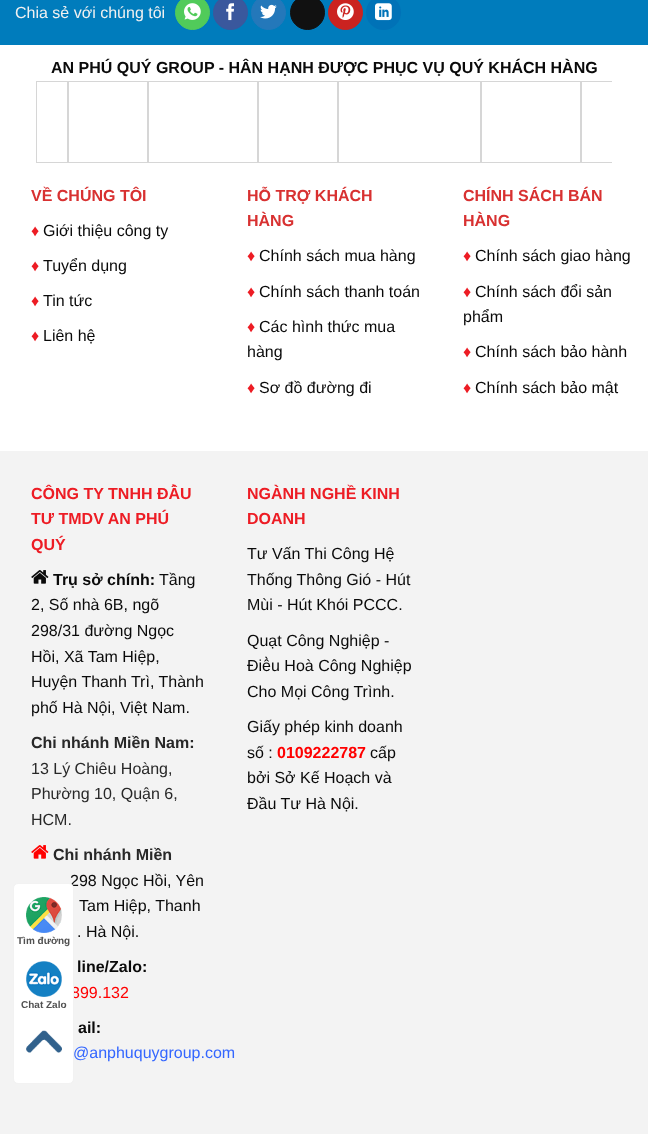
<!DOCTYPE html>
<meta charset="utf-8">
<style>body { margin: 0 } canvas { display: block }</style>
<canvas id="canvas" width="648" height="1134"></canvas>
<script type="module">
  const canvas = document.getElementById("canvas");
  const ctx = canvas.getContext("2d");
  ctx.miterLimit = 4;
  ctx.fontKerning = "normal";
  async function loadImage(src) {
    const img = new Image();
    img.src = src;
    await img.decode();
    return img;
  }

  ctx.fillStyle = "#007cbc";
  ctx.fillRect(0, 0, 648, 1134);
  ctx.font = "16px Liberation Sans";
  ctx.fillStyle = "#f1f1f1";
  ctx.fillText("Chia sẻ với chúng tôi", 15, 18);
  ctx.fillStyle = "#51cb5a";
  ctx.beginPath();
  ctx.arc(192.5, 12.5, 17, 0, Math.PI * 2);
  ctx.fill();
  ctx.strokeStyle = "#51cb5a";
  ctx.stroke();
  ctx.drawImage(await loadImage("img1.png"), 184, 3, 17, 17);
  ctx.fillStyle = "#3a589d";
  ctx.beginPath();
  ctx.arc(230.5, 12.5, 17, 0, Math.PI * 2);
  ctx.fill();
  ctx.strokeStyle = "#3a589d";
  ctx.stroke();
  ctx.drawImage(await loadImage("img2.png"), 226, 3, 8, 18);
  ctx.fillStyle = "#2478ba";
  ctx.beginPath();
  ctx.arc(268.5, 12.5, 17, 0, Math.PI * 2);
  ctx.fill();
  ctx.strokeStyle = "#2478ba";
  ctx.stroke();
  ctx.drawImage(await loadImage("img3.png"), 260, 4, 17, 15);
  ctx.fillStyle = "#111111";
  ctx.beginPath();
  ctx.arc(307.5, 12.5, 17, 0, Math.PI * 2);
  ctx.fill();
  ctx.strokeStyle = "#111111";
  ctx.stroke();
  ctx.fillStyle = "#cb2320";
  ctx.beginPath();
  ctx.arc(345.5, 12.5, 17, 0, Math.PI * 2);
  ctx.fill();
  ctx.strokeStyle = "#cb2320";
  ctx.stroke();
  ctx.drawImage(await loadImage("img4.png"), 337, 3, 17, 17);
  ctx.fillStyle = "#0072b7";
  ctx.beginPath();
  ctx.arc(383.5, 12.5, 17.5, 0, Math.PI * 2);
  ctx.fill();
  ctx.drawImage(await loadImage("img5.png"), 375, 3, 17, 18);
  ctx.fillStyle = "#ffffff";
  ctx.fillRect(0, 45, 648, 406);
  ctx.font = "bold 16px Liberation Sans";
  ctx.fillStyle = "#0a0a0a";
  ctx.fillText("AN PHÚ QUÝ GROUP - HÂN HẠNH ĐƯỢC PHỤC VỤ QUÝ KHÁCH HÀNG", 51, 73);
  ctx.strokeStyle = "#d6d6d6";
  ctx.strokeRect(36.5, 81.5, 31, 81);
  ctx.strokeRect(68.5, 81.5, 79, 81);
  ctx.strokeRect(148.5, 81.5, 109, 81);
  ctx.strokeRect(258.5, 81.5, 79, 81);
  ctx.strokeRect(338.5, 81.5, 142, 81);
  ctx.strokeRect(481.5, 81.5, 99, 81);
  ctx.save();
  ctx.beginPath();
  ctx.rect(36, 81, 576, 82);
  ctx.clip();
  ctx.strokeRect(581.5, 81.5, 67, 81);
  ctx.restore();
  ctx.fillStyle = "#d83131";
  ctx.fillText("VỀ CHÚNG TÔI", 31, 201);
  ctx.font = "16px Liberation Sans";
  ctx.fillStyle = "#ed1c24";
  ctx.fillText("♦", 31, 236);
  ctx.fillStyle = "#0a0a0a";
  ctx.fillText("Giới thiệu công ty", 43, 236);
  ctx.fillStyle = "#ed1c24";
  ctx.fillText("♦", 31, 271);
  ctx.fillStyle = "#0a0a0a";
  ctx.fillText("Tuyển dụng", 43, 271);
  ctx.fillStyle = "#ed1c24";
  ctx.fillText("♦", 31, 306);
  ctx.fillStyle = "#0a0a0a";
  ctx.fillText("Tin tức", 43, 306);
  ctx.fillStyle = "#ed1c24";
  ctx.fillText("♦", 31, 341);
  ctx.fillStyle = "#0a0a0a";
  ctx.fillText("Liên hệ", 43, 341);
  ctx.font = "bold 16px Liberation Sans";
  ctx.fillStyle = "#d83131";
  ctx.fillText("HỖ TRỢ KHÁCH", 247, 201);
  ctx.fillText("HÀNG", 247, 226);
  ctx.font = "16px Liberation Sans";
  ctx.fillStyle = "#ed1c24";
  ctx.fillText("♦", 247, 261);
  ctx.fillStyle = "#0a0a0a";
  ctx.fillText("Chính sách mua hàng", 259, 261);
  ctx.fillStyle = "#ed1c24";
  ctx.fillText("♦", 247, 297);
  ctx.fillStyle = "#0a0a0a";
  ctx.fillText("Chính sách thanh toán", 259, 297);
  ctx.fillStyle = "#ed1c24";
  ctx.fillText("♦", 247, 332);
  ctx.fillStyle = "#0a0a0a";
  ctx.fillText("Các hình thức mua", 259, 332);
  ctx.fillText("hàng", 247, 357);
  ctx.fillStyle = "#ed1c24";
  ctx.fillText("♦", 247, 393);
  ctx.fillStyle = "#0a0a0a";
  ctx.fillText("Sơ đồ đường đi", 259, 393);
  ctx.font = "bold 16px Liberation Sans";
  ctx.fillStyle = "#d83131";
  ctx.fillText("CHÍNH SÁCH BÁN", 463, 201);
  ctx.fillText("HÀNG", 463, 226);
  ctx.font = "16px Liberation Sans";
  ctx.fillStyle = "#ed1c24";
  ctx.fillText("♦", 463, 261);
  ctx.fillStyle = "#0a0a0a";
  ctx.fillText("Chính sách giao hàng", 475, 261);
  ctx.fillStyle = "#ed1c24";
  ctx.fillText("♦", 463, 297);
  ctx.fillStyle = "#0a0a0a";
  ctx.fillText("Chính sách đổi sản", 475, 297);
  ctx.fillText("phẩm", 463, 322);
  ctx.fillStyle = "#ed1c24";
  ctx.fillText("♦", 463, 357);
  ctx.fillStyle = "#0a0a0a";
  ctx.fillText("Chính sách bảo hành", 475, 357);
  ctx.fillStyle = "#ed1c24";
  ctx.fillText("♦", 463, 393);
  ctx.fillStyle = "#0a0a0a";
  ctx.fillText("Chính sách bảo mật", 475, 393);
  ctx.fillStyle = "#f3f3f3";
  ctx.fillRect(0, 451, 648, 683);
  ctx.font = "bold 16px Liberation Sans";
  ctx.fillStyle = "#ed1c24";
  ctx.fillText("CÔNG TY TNHH ĐẦU", 31, 499);
  ctx.fillText("TƯ TMDV AN PHÚ", 31, 524);
  ctx.fillText("QUÝ", 31, 550);
  ctx.drawImage(await loadImage("img6.png"), 31, 570, 18, 14);
  ctx.fillStyle = "#0a0a0a";
  ctx.fillText("Trụ sở chính:", 53, 585);
  ctx.font = "16px Liberation Sans";
  ctx.fillText("Tầng", 159, 585);
  ctx.fillText("2, Số nhà 6B, ngõ", 31, 610);
  ctx.fillText("298/31 đường Ngọc", 31, 636);
  ctx.fillText("Hồi, Xã Tam Hiệp,", 31, 662);
  ctx.fillText("Huyện Thanh Trì, Thành", 31, 687);
  ctx.fillText("phố Hà Nội, Việt Nam.", 31, 713);
  ctx.font = "bold 16px Liberation Sans";
  ctx.fillStyle = "#282828";
  ctx.fillText("Chi nhánh Miền Nam:", 31, 748);
  ctx.font = "16px Liberation Sans";
  ctx.fillText("13 Lý Chiêu Hoàng,", 31, 774);
  ctx.fillText("Phường 10, Quận 6,", 31, 799);
  ctx.fillText("HCM.", 31, 825);
  ctx.drawImage(await loadImage("img7.png"), 31, 845, 18, 14);
  ctx.font = "bold 16px Liberation Sans";
  ctx.fillText("Chi nhánh Miền", 53, 860);
  ctx.font = "16px Liberation Sans";
  ctx.fillStyle = "#0a0a0a";
  ctx.fillText("298 Ngọc Hồi, Yên", 70, 886);
  ctx.fillText("Tam Hiệp, Thanh", 79, 911);
  ctx.fillText(". Hà Nội.", 77, 937);
  ctx.font = "bold 16px Liberation Sans";
  ctx.fillText("line/Zalo:", 77, 972);
  ctx.font = "16px Liberation Sans";
  ctx.fillStyle = "#ff0000";
  ctx.fillText("899.132", 71, 998);
  ctx.font = "bold 16px Liberation Sans";
  ctx.fillStyle = "#0a0a0a";
  ctx.fillText("ail:", 78, 1033);
  ctx.font = "16px Liberation Sans";
  ctx.fillStyle = "#3366ff";
  ctx.fillText("@anphuquygroup.com", 73, 1058);
  ctx.font = "bold 16px Liberation Sans";
  ctx.fillStyle = "#ed1c24";
  ctx.fillText("NGÀNH NGHỀ KINH", 247, 499);
  ctx.fillText("DOANH", 247, 524);
  ctx.font = "16px Liberation Sans";
  ctx.fillStyle = "#0a0a0a";
  ctx.fillText("Tư Vấn Thi Công Hệ", 247, 559);
  ctx.fillText("Thống Thông Gió - Hút", 247, 585);
  ctx.fillText("Mùi - Hút Khói PCCC.", 247, 610);
  ctx.fillText("Quạt Công Nghiệp -", 247, 646);
  ctx.fillText("Điều Hoà Công Nghiệp", 247, 671);
  ctx.fillText("Cho Mọi Công Trình.", 247, 697);
  ctx.fillText("Giấy phép kinh doanh", 247, 732);
  ctx.fillText("số :", 247, 758);
  ctx.font = "bold 16px Liberation Sans";
  ctx.fillStyle = "#ff0000";
  ctx.fillText("0109222787", 277, 758);
  ctx.font = "16px Liberation Sans";
  ctx.fillStyle = "#0a0a0a";
  ctx.fillText("cấp", 370, 758);
  ctx.fillText("bởi Sở Kế Hoạch và", 247, 783);
  ctx.fillText("Đầu Tư Hà Nội.", 247, 809);
  ctx.fillStyle = "#ffffff";
  ctx.beginPath();
  ctx.roundRect(13.5, 883.5, 60, 200, 4.5);
  ctx.fill();
  ctx.strokeStyle = "#f2f2f2";
  ctx.stroke();
  ctx.drawImage(await loadImage("img8.png"), 26, 897, 36, 36);
  ctx.font = "bold 10px Liberation Sans";
  ctx.fillStyle = "#515151";
  ctx.fillText("Tìm đường", 17, 944);
  ctx.drawImage(await loadImage("img9.png"), 26, 961, 36, 36);
  ctx.fillText("Chat Zalo", 21, 1008);
  ctx.drawImage(await loadImage("img10.png"), 26, 1030, 36, 23);
</script>
